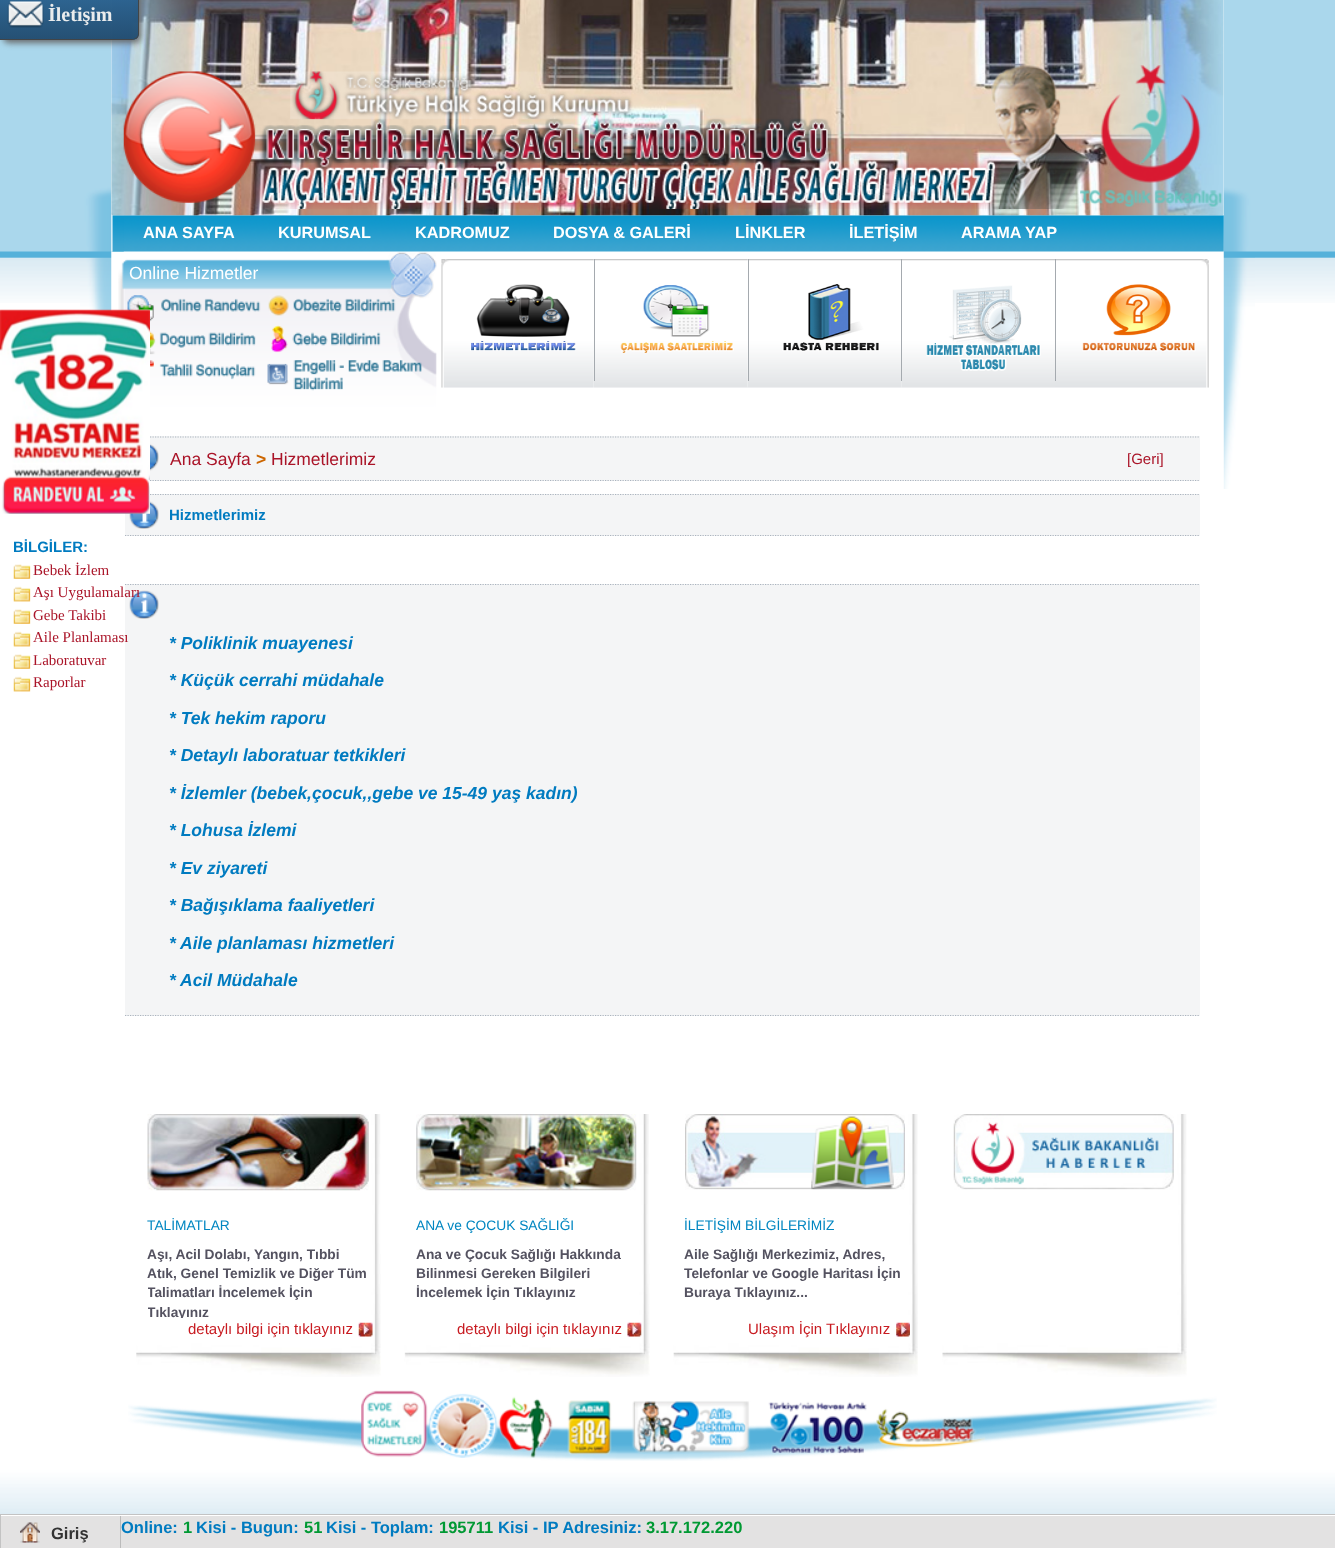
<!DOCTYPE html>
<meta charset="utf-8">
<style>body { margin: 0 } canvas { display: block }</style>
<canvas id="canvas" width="1335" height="1548"></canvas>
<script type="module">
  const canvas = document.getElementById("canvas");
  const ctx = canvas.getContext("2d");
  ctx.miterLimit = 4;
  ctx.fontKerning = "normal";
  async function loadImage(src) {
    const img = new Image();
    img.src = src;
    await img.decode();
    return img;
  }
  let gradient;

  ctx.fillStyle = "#ffffff";
  ctx.fillRect(0, 0, 1335, 1548);
  ctx.drawImage(await loadImage("img2.png"), 0, 0, 1335, 303);
  ctx.fillRect(80, 0, 1175, 303);
  ctx.drawImage(await loadImage("img3.png"), 80, 0, 32, 311);
  ctx.drawImage(await loadImage("img4.png"), 1223, 0, 32, 489);
  ctx.drawImage(await loadImage("img5.png"), 111, 214, 1113, 38);
  ctx.drawImage(await loadImage("img6.png"), 111, 214, 13, 38);
  ctx.drawImage(await loadImage("img7.png"), 111, 0, 1113, 216);
  ctx.save();
  ctx.beginPath();
  ctx.moveTo(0, 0);
  ctx.lineTo(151, 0);
  ctx.lineTo(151, 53);
  ctx.lineTo(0, 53);
  ctx.closePath();
  ctx.moveTo(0, -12);
  ctx.lineTo(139, -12);
  ctx.lineTo(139, 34);
  ctx.bezierCurveTo(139, 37.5, 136.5, 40, 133, 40);
  ctx.lineTo(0, 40);
  ctx.closePath();
  ctx.clip("evenodd");
  ctx.fillStyle = "rgba(102, 102, 102, 0.97)";
  ctx.filter = "blur(3px)";
  ctx.beginPath();
  ctx.roundRect(3, -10, 138, 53, 6);
  ctx.fill();
  ctx.filter = "none";
  ctx.restore();
  ctx.save();
  ctx.beginPath();
  ctx.moveTo(0, -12);
  ctx.lineTo(139, -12);
  ctx.lineTo(139, 34);
  ctx.bezierCurveTo(139, 37.5, 136.5, 40, 133, 40);
  ctx.lineTo(0, 40);
  ctx.closePath();
  ctx.clip();
  gradient = ctx.createLinearGradient(0, -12, 0, 39);
  gradient.addColorStop(0, "rgba(44, 102, 150, 0.97)");
  gradient.addColorStop(1, "rgba(33, 76, 112, 0.97)");
  ctx.fillStyle = gradient;
  ctx.fillRect(0, 0, 139, 39);
  gradient = ctx.createLinearGradient(0, 39, 0, 90);
  gradient.addColorStop(0, "rgba(44, 102, 150, 0.97)");
  gradient.addColorStop(1, "rgba(33, 76, 112, 0.97)");
  ctx.fillStyle = gradient;
  ctx.fillRect(0, 39, 139, 1);
  ctx.restore();
  ctx.fillStyle = "rgba(68, 68, 68, 0.97)";
  ctx.beginPath();
  ctx.moveTo(0, -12);
  ctx.lineTo(139, -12);
  ctx.lineTo(139, 34);
  ctx.bezierCurveTo(139, 37, 136, 40, 132, 40);
  ctx.lineTo(0, 40);
  ctx.closePath();
  ctx.moveTo(0, -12);
  ctx.lineTo(138, -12);
  ctx.lineTo(138, 34);
  ctx.bezierCurveTo(138, 37, 135, 39, 132, 39);
  ctx.lineTo(0, 39);
  ctx.closePath();
  ctx.fill("evenodd");
  ctx.drawImage(await loadImage("img1.png"), 7, 1, 37, 27);
  ctx.font = "bold 20px Liberation Serif";
  ctx.fillStyle = "#eaeced";
  ctx.fillText("İletişim", 48, 21);
  ctx.drawImage(await loadImage("img8.png"), 123, 65, 1099, 144);
  ctx.font = "bold 16.25px Liberation Sans";
  ctx.fillStyle = "#ffffff";
  ctx.fillText("ANA SAYFA", 143, 238);
  ctx.fillText("KURUMSAL", 278, 238);
  ctx.fillText("KADROMUZ", 415, 238);
  ctx.fillText("DOSYA & GALERİ", 553, 238);
  ctx.fillText("LİNKLER", 735, 238);
  ctx.fillText("İLETİŞİM", 849, 238);
  ctx.fillText("ARAMA YAP", 961, 238);
  ctx.drawImage(await loadImage("img9.png"), 118, 252, 319, 162);
  ctx.font = "17.5px Liberation Sans";
  ctx.fillText("Online Hizmetler", 129, 279);
  ctx.drawImage(await loadImage("img10.png"), 127, 295, 295, 96);
  ctx.drawImage(await loadImage("img11.png"), 441, 259, 153, 129);
  ctx.drawImage(await loadImage("img12.png"), 470, 284, 106, 67);
  ctx.drawImage(await loadImage("img13.png"), 594, 259, 154, 129);
  ctx.fillStyle = "#a5aaaf";
  ctx.fillRect(594, 259, 1, 122);
  ctx.drawImage(await loadImage("img14.png"), 620, 285, 114, 68);
  ctx.drawImage(await loadImage("img15.png"), 747, 259, 155, 129);
  ctx.fillRect(748, 259, 1, 122);
  ctx.drawImage(await loadImage("img16.png"), 782, 284, 98, 68);
  ctx.drawImage(await loadImage("img17.png"), 901, 259, 154, 129);
  ctx.fillRect(901, 259, 1, 122);
  ctx.drawImage(await loadImage("img18.png"), 926, 285, 115, 87);
  ctx.drawImage(await loadImage("img19.png"), 1055, 259, 154, 129);
  ctx.fillRect(1055, 259, 1, 122);
  ctx.drawImage(await loadImage("img20.png"), 1082, 284, 114, 68);
  ctx.fillStyle = "#f4f5f6";
  ctx.fillRect(150, 436, 1050, 45);
  ctx.drawImage(await loadImage("img21.png"), 150, 442, 9, 30);
  ctx.beginPath();
  ctx.moveTo(125, 437);
  ctx.lineTo(1200, 437);
  ctx.strokeStyle = "#aab4be";
  ctx.lineWidth = 1.2;
  ctx.setLineDash([1.25, 1.25]);
  ctx.stroke();
  ctx.beginPath();
  ctx.moveTo(125, 480.5);
  ctx.lineTo(1200, 480.5);
  ctx.stroke();
  ctx.fillStyle = "#aa1428";
  ctx.fillText("Ana Sayfa", 170, 465);
  ctx.font = "bold 17.5px Liberation Sans";
  ctx.fillStyle = "#cc6600";
  ctx.fillText(">", 256, 465);
  ctx.font = "17.5px Liberation Sans";
  ctx.fillStyle = "#aa1428";
  ctx.fillText("Hizmetlerimiz", 271, 465);
  ctx.font = "15px Liberation Sans";
  ctx.fillText("[Geri]", 1127, 464);
  ctx.fillStyle = "#f4f5f6";
  ctx.fillRect(125, 494, 1075, 42);
  ctx.drawImage(await loadImage("img22.png"), 129, 500, 30, 29);
  ctx.beginPath();
  ctx.moveTo(125, 494.5);
  ctx.lineTo(1200, 494.5);
  ctx.stroke();
  ctx.beginPath();
  ctx.moveTo(125, 535.5);
  ctx.lineTo(1200, 535.5);
  ctx.stroke();
  ctx.font = "bold 15px Liberation Sans";
  ctx.fillStyle = "#007bc0";
  ctx.fillText("Hizmetlerimiz", 169, 520);
  ctx.fillStyle = "#f4f5f6";
  ctx.fillRect(125, 584, 1075, 432);
  ctx.drawImage(await loadImage("img22.png"), 129, 590, 30, 29);
  ctx.beginPath();
  ctx.moveTo(125, 584.5);
  ctx.lineTo(1200, 584.5);
  ctx.stroke();
  ctx.beginPath();
  ctx.moveTo(125, 1015.5);
  ctx.lineTo(1200, 1015.5);
  ctx.stroke();
  ctx.font = "italic bold 17.5px Liberation Sans";
  ctx.fillStyle = "#007bc0";
  ctx.fillText("* Poliklinik muayenesi", 169, 649);
  ctx.fillText("* Küçük cerrahi müdahale", 169, 686);
  ctx.fillText("* Tek hekim raporu", 169, 724);
  ctx.fillText("* Detaylı laboratuar tetkikleri", 169, 761);
  ctx.fillText("* İzlemler (bebek,çocuk,,gebe ve 15-49 yaş kadın)", 169, 799);
  ctx.fillText("* Lohusa İzlemi", 169, 836);
  ctx.fillText("* Ev ziyareti", 169, 874);
  ctx.fillText("* Bağışıklama faaliyetleri", 169, 911);
  ctx.fillText("* Aile planlaması hizmetleri", 169, 949);
  ctx.fillText("* Acil Müdahale", 169, 986);
  ctx.drawImage(await loadImage("img23.png"), 136, 1114, 245, 263);
  ctx.drawImage(await loadImage("img24.png"), 147, 1114, 222, 77);
  ctx.font = "13.75px Liberation Sans";
  ctx.fillStyle = "#0186c1";
  ctx.fillText("TALİMATLAR", 147, 1230);
  ctx.font = "bold 13.75px Liberation Sans";
  ctx.fillStyle = "#545260";
  ctx.fillText("Aşı, Acil Dolabı, Yangın, Tıbbi", 147, 1259);
  ctx.fillText("Atık, Genel Temizlik ve Diğer Tüm", 147, 1278);
  ctx.save();
  ctx.beginPath();
  ctx.rect(148, 1245, 225, 73);
  ctx.clip();
  ctx.fillText("Talimatları İncelemek İçin", 147, 1297);
  ctx.fillText("Tıklayınız", 147, 1317);
  ctx.restore();
  ctx.drawImage(await loadImage("img25.png"), 358, 1322, 15, 15);
  ctx.font = "15px Liberation Sans";
  ctx.fillStyle = "#c81b21";
  ctx.fillText("detaylı bilgi için tıklayınız", 188, 1334);
  ctx.drawImage(await loadImage("img26.png"), 404, 1114, 246, 263);
  ctx.drawImage(await loadImage("img27.png"), 416, 1114, 221, 77);
  ctx.font = "13.75px Liberation Sans";
  ctx.fillStyle = "#0186c1";
  ctx.fillText("ANA ve ÇOCUK SAĞLIĞI", 416, 1230);
  ctx.font = "bold 13.75px Liberation Sans";
  ctx.fillStyle = "#545260";
  ctx.fillText("Ana ve Çocuk Sağlığı Hakkında", 416, 1259);
  ctx.fillText("Bilinmesi Gereken Bilgileri", 416, 1278);
  ctx.fillText("İncelemek İçin Tıklayınız", 416, 1297);
  ctx.drawImage(await loadImage("img28.png"), 627, 1322, 15, 15);
  ctx.font = "15px Liberation Sans";
  ctx.fillStyle = "#c81b21";
  ctx.fillText("detaylı bilgi için tıklayınız", 457, 1334);
  ctx.drawImage(await loadImage("img29.png"), 673, 1114, 245, 263);
  ctx.drawImage(await loadImage("img30.png"), 685, 1114, 220, 76);
  ctx.font = "13.75px Liberation Sans";
  ctx.fillStyle = "#0186c1";
  ctx.fillText("İLETİŞİM BİLGİLERİMİZ", 684, 1230);
  ctx.font = "bold 13.75px Liberation Sans";
  ctx.fillStyle = "#545260";
  ctx.fillText("Aile Sağlığı Merkezimiz, Adres,", 684, 1259);
  ctx.fillText("Telefonlar ve Google Haritası İçin", 684, 1278);
  ctx.fillText("Buraya Tıklayınız...", 684, 1297);
  ctx.drawImage(await loadImage("img31.png"), 896, 1322, 14, 15);
  ctx.font = "15px Liberation Sans";
  ctx.fillStyle = "#c81b21";
  ctx.fillText("Ulaşım İçin Tıklayınız", 748, 1334);
  ctx.drawImage(await loadImage("img32.png"), 942, 1114, 245, 263);
  ctx.drawImage(await loadImage("img33.png"), 953, 1114, 221, 76);
  ctx.drawImage(await loadImage("img34.png"), 128, 1390, 1089, 71);
  ctx.drawImage(await loadImage("img35.png"), 0, 1463, 1335, 51);
  ctx.fillStyle = "#e3e2e2";
  ctx.fillRect(1, 1516, 1334, 32);
  ctx.fillStyle = "#c3c3c3";
  ctx.fillRect(0, 1514, 1335, 1);
  ctx.fillRect(0, 1514, 1, 34);
  ctx.drawImage(await loadImage("img36.png"), 20, 1522, 20, 21);
  ctx.fillStyle = "#bbbbbb";
  ctx.fillRect(120, 1516, 1, 32);
  ctx.font = "bold 16.5px Liberation Sans";
  ctx.fillStyle = "#333333";
  ctx.fillText("Giriş", 51, 1539);
  ctx.fillStyle = "#007bc0";
  ctx.fillText("Online:", 121, 1533);
  ctx.fillStyle = "#009933";
  ctx.fillText("1", 183, 1533);
  ctx.fillStyle = "#007bc0";
  ctx.fillText("Kisi - Bugun:", 196, 1533);
  ctx.fillStyle = "#009933";
  ctx.fillText("51", 304, 1533);
  ctx.fillStyle = "#007bc0";
  ctx.fillText("Kisi - Toplam:", 326, 1533);
  ctx.fillStyle = "#009933";
  ctx.fillText("195711", 439, 1533);
  ctx.fillStyle = "#007bc0";
  ctx.fillText("Kisi - IP Adresiniz:", 498, 1533);
  ctx.fillStyle = "#009933";
  ctx.fillText("3.17.172.220", 646, 1533);
  ctx.drawImage(await loadImage("img37.png"), 0, 309, 150, 205);
  ctx.font = "bold 15px Liberation Sans";
  ctx.fillStyle = "#007bc0";
  ctx.fillText("BİLGİLER:", 13, 552);
  ctx.drawImage(await loadImage("img38.png"), 13, 564, 18, 15);
  ctx.font = "15px Liberation Serif";
  ctx.fillStyle = "#aa1428";
  ctx.fillText("Bebek İzlem", 33, 575);
  ctx.drawImage(await loadImage("img39.png"), 13, 586, 18, 16);
  ctx.fillText("Aşı Uygulamaları", 33, 597);
  ctx.drawImage(await loadImage("img38.png"), 13, 609, 18, 15);
  ctx.fillText("Gebe Takibi", 33, 620);
  ctx.drawImage(await loadImage("img39.png"), 13, 631, 18, 16);
  ctx.fillText("Aile Planlaması", 33, 642);
  ctx.drawImage(await loadImage("img38.png"), 13, 654, 18, 15);
  ctx.fillText("Laboratuvar", 33, 665);
  ctx.drawImage(await loadImage("img39.png"), 13, 676, 18, 16);
  ctx.fillText("Raporlar", 33, 687);
</script>
